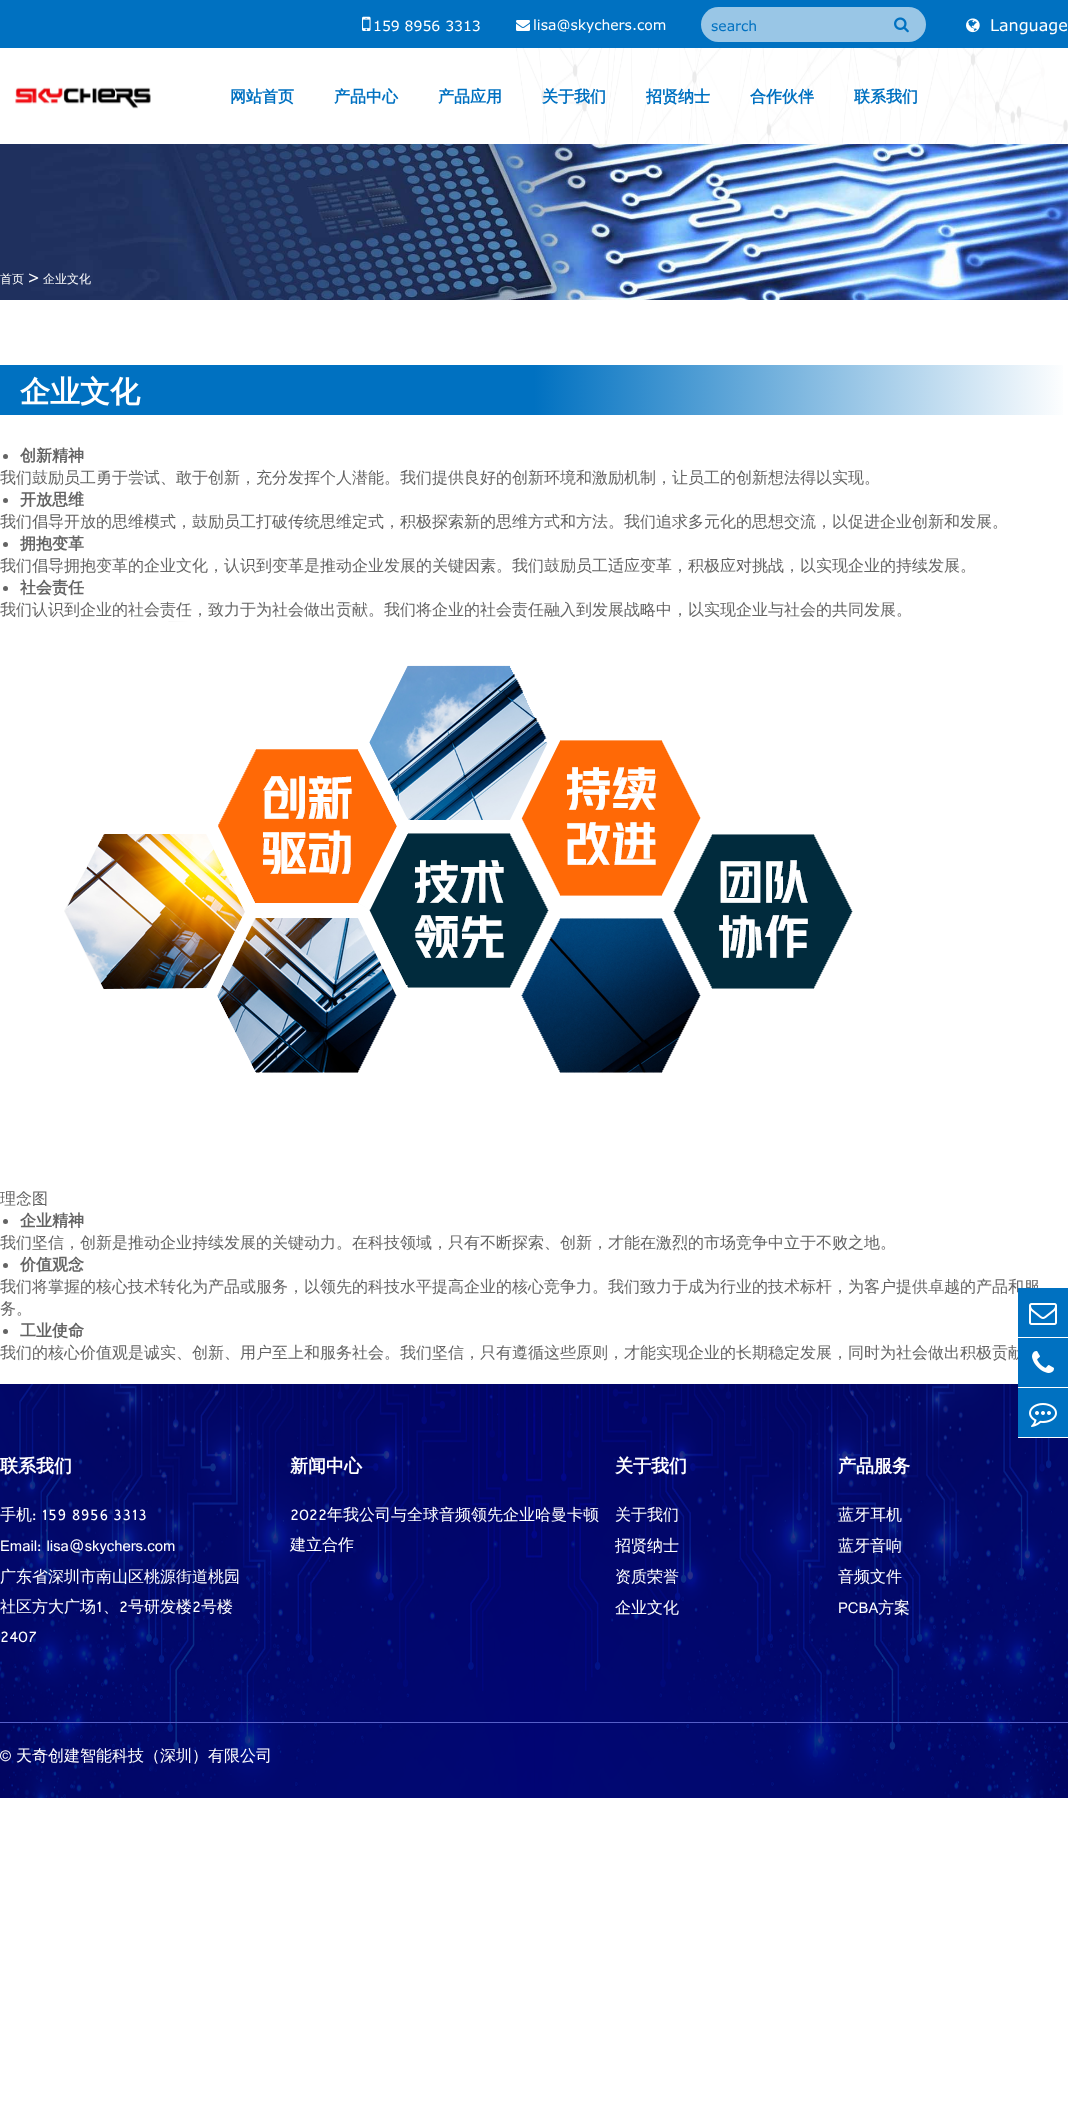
<!DOCTYPE html>
<meta charset="utf-8">
<style>body { margin: 0 } canvas { display: block }</style>
<canvas id="canvas" width="1068" height="2115"></canvas>
<script type="module">
  const canvas = document.getElementById("canvas");
  const ctx = canvas.getContext("2d");
  ctx.miterLimit = 4;
  ctx.fontKerning = "normal";
  async function loadImage(src) {
    const img = new Image();
    img.src = src;
    await img.decode();
    return img;
  }
  let gradient;

  ctx.fillStyle = "#ffffff";
  ctx.fillRect(0, 0, 1068, 2115);
  ctx.drawImage(await loadImage("img1.png"), 511, 48, 557, 96);
  ctx.fillStyle = "#0071c1";
  ctx.fillRect(0, 0, 1068, 48);
  ctx.drawImage(await loadImage("img2.png"), 362, 16, 9, 15);
  ctx.font = "14px Verdana";
  ctx.fillStyle = "#ffffff";
  ctx.fillText("159 8956 3313", 373, 31);
  ctx.drawImage(await loadImage("img3.png"), 516, 20, 14, 11);
  ctx.fillText("lisa@skychers.com", 533, 30);
  ctx.fillStyle = "#99c6e6";
  ctx.beginPath();
  ctx.roundRect(701, 7, 225, 35, 17.5);
  ctx.fill();
  ctx.fillStyle = "#0071c1";
  ctx.fillText("search", 711, 31);
  ctx.drawImage(await loadImage("img4.png"), 894, 17, 15, 16);
  ctx.drawImage(await loadImage("img5.png"), 966, 18, 14, 15);
  ctx.font = "16px Verdana";
  ctx.fillStyle = "#ffffff";
  ctx.fillText("Language", 990, 31);
  ctx.drawImage(await loadImage("img6.png"), 15, 87, 136, 22);
  ctx.font = "bold 16px WenQuanYi Zen Hei";
  ctx.fillStyle = "#0071c1";
  ctx.fillText("网站首页", 230, 102);
  ctx.fillText("产品中心", 334, 102);
  ctx.fillText("产品应用", 438, 102);
  ctx.fillText("关于我们", 542, 102);
  ctx.fillText("招贤纳士", 646, 102);
  ctx.fillText("合作伙伴", 750, 102);
  ctx.fillText("联系我们", 854, 102);
  ctx.drawImage(await loadImage("img7.png"), 0, 144, 1068, 156);
  ctx.font = "500 12px WenQuanYi Zen Hei";
  ctx.fillStyle = "#ffffff";
  ctx.fillText("首页", 0, 283);
  ctx.font = "16px Verdana";
  ctx.fillText(">", 27, 283);
  ctx.font = "500 12px WenQuanYi Zen Hei";
  ctx.fillText("企业文化", 43, 283);
  gradient = ctx.createLinearGradient(0, 390, 1068, 390);
  gradient.addColorStop(0, "#0071c1");
  gradient.addColorStop(0.5, "#0071c1");
  gradient.addColorStop(1, "#ffffff");
  ctx.fillStyle = gradient;
  ctx.fillRect(0, 365, 1063, 50);
  ctx.font = "bold 30px WenQuanYi Zen Hei";
  ctx.fillStyle = "#ffffff";
  ctx.fillText("企业文化", 20, 402);
  ctx.fillStyle = "#646464";
  ctx.beginPath();
  ctx.arc(5.5, 456.5, 2.5, 0, Math.PI * 2);
  ctx.fill();
  ctx.font = "bold 16px WenQuanYi Zen Hei";
  ctx.fillText("创新精神", 20, 461);
  ctx.font = "500 16px WenQuanYi Zen Hei";
  ctx.fillText("我们鼓励员工勇于尝试、敢于创新，充分发挥个人潜能。我们提供良好的创新环境和激励机制，让员工的创新想法得以实现。", 0, 483);
  ctx.beginPath();
  ctx.arc(5.5, 500.5, 2.5, 0, Math.PI * 2);
  ctx.fill();
  ctx.font = "bold 16px WenQuanYi Zen Hei";
  ctx.fillText("开放思维", 20, 505);
  ctx.font = "500 16px WenQuanYi Zen Hei";
  ctx.fillText("我们倡导开放的思维模式，鼓励员工打破传统思维定式，积极探索新的思维方式和方法。我们追求多元化的思想交流，以促进企业创新和发展。", 0, 527);
  ctx.beginPath();
  ctx.arc(5.5, 544.5, 2.5, 0, Math.PI * 2);
  ctx.fill();
  ctx.font = "bold 16px WenQuanYi Zen Hei";
  ctx.fillText("拥抱变革", 20, 549);
  ctx.font = "500 16px WenQuanYi Zen Hei";
  ctx.fillText("我们倡导拥抱变革的企业文化，认识到变革是推动企业发展的关键因素。我们鼓励员工适应变革，积极应对挑战，以实现企业的持续发展。", 0, 571);
  ctx.beginPath();
  ctx.arc(5.5, 588.5, 2.5, 0, Math.PI * 2);
  ctx.fill();
  ctx.font = "bold 16px WenQuanYi Zen Hei";
  ctx.fillText("社会责任", 20, 593);
  ctx.font = "500 16px WenQuanYi Zen Hei";
  ctx.fillText("我们认识到企业的社会责任，致力于为社会做出贡献。我们将企业的社会责任融入到发展战略中，以实现企业与社会的共同发展。", 0, 615);
  ctx.drawImage(await loadImage("img8.png"), 64, 621, 789, 452);
  ctx.fillText("理念图", 0, 1204);
  ctx.beginPath();
  ctx.arc(5.5, 1221.5, 2.5, 0, Math.PI * 2);
  ctx.fill();
  ctx.font = "bold 16px WenQuanYi Zen Hei";
  ctx.fillText("企业精神", 20, 1226);
  ctx.font = "500 16px WenQuanYi Zen Hei";
  ctx.fillText("我们坚信，创新是推动企业持续发展的关键动力。在科技领域，只有不断探索、创新，才能在激烈的市场竞争中立于不败之地。", 0, 1248);
  ctx.beginPath();
  ctx.arc(5.5, 1265.5, 2.5, 0, Math.PI * 2);
  ctx.fill();
  ctx.font = "bold 16px WenQuanYi Zen Hei";
  ctx.fillText("价值观念", 20, 1270);
  ctx.font = "500 16px WenQuanYi Zen Hei";
  ctx.fillText("我们将掌握的核心技术转化为产品或服务，以领先的科技水平提高企业的核心竞争力。我们致力于成为行业的技术标杆，为客户提供卓越的产品和服", 0, 1292);
  ctx.fillText("务。", 0, 1314);
  ctx.beginPath();
  ctx.arc(5.5, 1331.5, 2.5, 0, Math.PI * 2);
  ctx.fill();
  ctx.font = "bold 16px WenQuanYi Zen Hei";
  ctx.fillText("工业使命", 20, 1336);
  ctx.font = "500 16px WenQuanYi Zen Hei";
  ctx.fillText("我们的核心价值观是诚实、创新、用户至上和服务社会。我们坚信，只有遵循这些原则，才能实现企业的长期稳定发展，同时为社会做出积极贡献", 0, 1358);
  ctx.fillStyle = "#0071c1";
  ctx.fillRect(1018, 1288, 50, 49);
  ctx.drawImage(await loadImage("img9.png"), 1029, 1303, 28, 22);
  ctx.drawImage(await loadImage("img12.png"), 0, 1384, 1068, 414);
  ctx.fillRect(1018, 1338, 50, 49);
  ctx.fillStyle = "#ffffff";
  ctx.fillRect(1018, 1387, 50, 1);
  ctx.drawImage(await loadImage("img10.png"), 1032, 1351, 22, 22);
  ctx.fillStyle = "#0071c1";
  ctx.fillRect(1018, 1388, 50, 49);
  ctx.fillStyle = "#ffffff";
  ctx.fillRect(1018, 1437, 50, 1);
  ctx.drawImage(await loadImage("img11.png"), 1029, 1403, 28, 24);
  ctx.font = "bold 18px WenQuanYi Zen Hei";
  ctx.fillText("联系我们", 0, 1472);
  ctx.font = "500 16px WenQuanYi Zen Hei";
  ctx.fillText("手机", 0, 1520);
  ctx.font = "16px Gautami";
  ctx.fillText(": 159 8956 3313", 32, 1520);
  ctx.fillText("Email: lisa@skychers.com", 0, 1551);
  ctx.font = "500 16px WenQuanYi Zen Hei";
  ctx.fillText("广东省深圳市南山区桃源街道桃园", 0, 1582);
  ctx.fillText("社区方大广场", 0, 1612);
  ctx.font = "16px Gautami";
  ctx.fillText("1", 96, 1612);
  ctx.font = "500 16px WenQuanYi Zen Hei";
  ctx.fillText("、", 103, 1612);
  ctx.font = "16px Gautami";
  ctx.fillText("2", 119, 1612);
  ctx.font = "500 16px WenQuanYi Zen Hei";
  ctx.fillText("号研发楼", 128, 1612);
  ctx.font = "16px Gautami";
  ctx.fillText("2", 192, 1612);
  ctx.font = "500 16px WenQuanYi Zen Hei";
  ctx.fillText("号楼", 201, 1612);
  ctx.font = "16px Gautami";
  ctx.fillText("2407", 0, 1642);
  ctx.font = "bold 18px WenQuanYi Zen Hei";
  ctx.fillText("新闻中心", 290, 1472);
  ctx.font = "16px Gautami";
  ctx.fillText("2022", 290, 1520);
  ctx.font = "500 16px WenQuanYi Zen Hei";
  ctx.fillText("年我公司与全球音频领先企业哈曼卡顿", 327, 1520);
  ctx.fillText("建立合作", 290, 1550);
  ctx.font = "bold 18px WenQuanYi Zen Hei";
  ctx.fillText("关于我们", 615, 1472);
  ctx.font = "500 16px WenQuanYi Zen Hei";
  ctx.fillText("关于我们", 615, 1520);
  ctx.fillText("招贤纳士", 615, 1551);
  ctx.fillText("资质荣誉", 615, 1582);
  ctx.fillText("企业文化", 615, 1613);
  ctx.font = "bold 18px WenQuanYi Zen Hei";
  ctx.fillText("产品服务", 838, 1472);
  ctx.font = "500 16px WenQuanYi Zen Hei";
  ctx.fillText("蓝牙耳机", 838, 1520);
  ctx.fillText("蓝牙音响", 838, 1551);
  ctx.fillText("音频文件", 838, 1582);
  ctx.font = "16px Gautami";
  ctx.fillText("PCBA", 838, 1613);
  ctx.font = "500 16px WenQuanYi Zen Hei";
  ctx.fillText("方案", 878, 1613);
  ctx.fillStyle = "#575fc8";
  ctx.fillRect(0, 1722, 1068, 1);
  ctx.font = "16px Gautami";
  ctx.fillStyle = "#ffffff";
  ctx.fillText("©", 0, 1761);
  ctx.font = "500 16px WenQuanYi Zen Hei";
  ctx.fillText("天奇创建智能科技（深圳）有限公司", 16, 1761);
</script>
